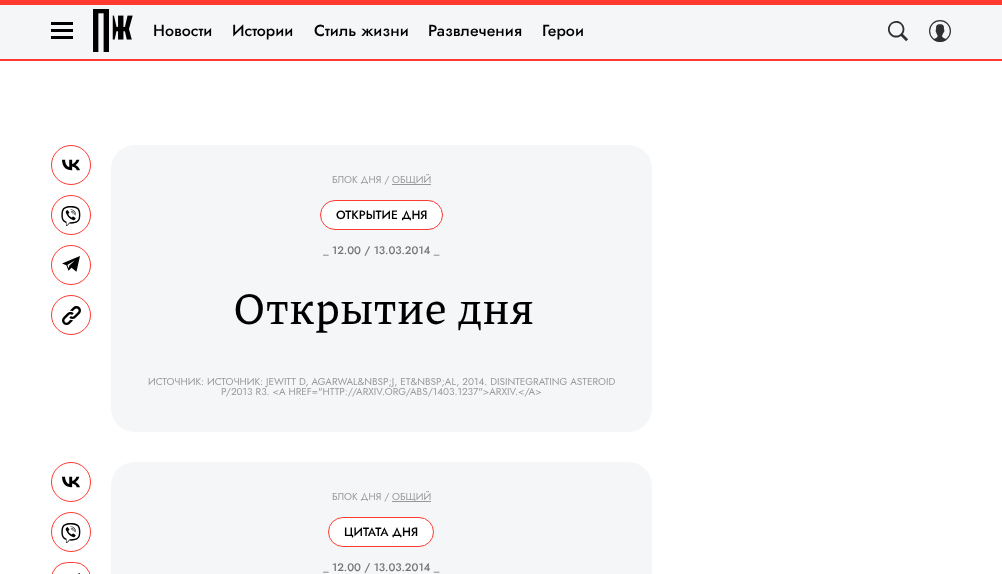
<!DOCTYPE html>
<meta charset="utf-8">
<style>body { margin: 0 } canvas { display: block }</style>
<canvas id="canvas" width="1002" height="574"></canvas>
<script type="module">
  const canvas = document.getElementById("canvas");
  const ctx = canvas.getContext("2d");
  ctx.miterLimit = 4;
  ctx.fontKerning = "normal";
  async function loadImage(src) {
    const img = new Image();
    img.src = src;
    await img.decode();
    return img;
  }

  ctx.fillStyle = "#ffffff";
  ctx.fillRect(0, 0, 1002, 574);
  ctx.fillStyle = "#ff3a30";
  ctx.fillRect(0, 0, 1002, 5);
  ctx.fillStyle = "#f5f6f8";
  ctx.fillRect(0, 5, 1002, 54);
  ctx.fillStyle = "#ff3a30";
  ctx.fillRect(0, 59, 1002, 2);
  ctx.fillStyle = "#000000";
  ctx.fillRect(51, 36, 22, 3);
  ctx.fillRect(51, 22, 22, 3);
  ctx.fillRect(51, 29, 22, 3);
  ctx.drawImage(await loadImage("img1.png"), 93, 9, 40, 43);
  ctx.font = "500 16px Jost";
  ctx.fillText("Новости", 153, 36);
  ctx.fillText("Истории", 232, 36);
  ctx.fillText("Стиль жизни", 314, 36);
  ctx.fillText("Развлечения", 428, 36);
  ctx.fillText("Герои", 542, 36);
  ctx.drawImage(await loadImage("img2.png"), 888, 21, 20, 21);
  ctx.drawImage(await loadImage("img3.png"), 929, 20, 22, 22);
  ctx.beginPath();
  ctx.arc(71, 165, 19.5, 0, Math.PI * 2);
  ctx.strokeStyle = "#ff3a30";
  ctx.stroke();
  ctx.drawImage(await loadImage("img4.png"), 62, 159, 18, 12);
  ctx.beginPath();
  ctx.arc(71, 215, 19.5, 0, Math.PI * 2);
  ctx.stroke();
  ctx.drawImage(await loadImage("img5.png"), 61, 206, 20, 20);
  ctx.beginPath();
  ctx.arc(71, 265, 19.5, 0, Math.PI * 2);
  ctx.stroke();
  ctx.drawImage(await loadImage("img6.png"), 62, 256, 18, 16);
  ctx.beginPath();
  ctx.arc(71, 315, 19.5, 0, Math.PI * 2);
  ctx.stroke();
  ctx.drawImage(await loadImage("img7.png"), 62, 306, 19, 19);
  ctx.fillStyle = "#f5f6f8";
  ctx.beginPath();
  ctx.roundRect(111, 145, 541, 287, 24);
  ctx.fill();
  ctx.font = "10px Jost";
  ctx.fillStyle = "#999999";
  ctx.fillText("БЛОК ДНЯ /", 332, 183);
  ctx.fillRect(392, 184, 39, 1);
  ctx.fillText("ОБЩИЙ", 392, 183);
  ctx.fillStyle = "#ffffff";
  ctx.beginPath();
  ctx.roundRect(320.5, 200.5, 122, 29, 14.5);
  ctx.fill();
  ctx.stroke();
  ctx.font = "500 12px Jost";
  ctx.fillStyle = "#000000";
  ctx.fillText("ОТКРЫТИЕ ДНЯ", 336, 219);
  ctx.font = "500 11px Jost";
  ctx.fillStyle = "#757575";
  ctx.fillText("_ 12.00 / 13.03.2014 _", 323, 254);
  ctx.font = "500 45px Piazzolla";
  ctx.fillStyle = "#000000";
  ctx.fillText("Открытие дня", 232, 324);
  ctx.font = "10px Jost";
  ctx.fillStyle = "#999999";
  ctx.fillText("ИСТОЧНИК: ИСТОЧНИК: JEWITT D, AGARWAL&NBSP;J, ET&NBSP;AL, 2014. DISINTEGRATING ASTEROID", 148, 385);
  ctx.fillText("P/2013 R3. <A HREF=\"HTTP://ARXIV.ORG/ABS/1403.1237\">ARXIV.<\/A>", 221, 395);
  ctx.beginPath();
  ctx.arc(71, 482, 19.5, 0, Math.PI * 2);
  ctx.stroke();
  ctx.drawImage(await loadImage("img4.png"), 62, 476, 18, 12);
  ctx.beginPath();
  ctx.arc(71, 532, 19.5, 0, Math.PI * 2);
  ctx.stroke();
  ctx.drawImage(await loadImage("img5.png"), 61, 523, 20, 20);
  ctx.beginPath();
  ctx.roundRect(51.5, 562.5, 39, 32, 19.5);
  ctx.stroke();
  ctx.drawImage(await loadImage("img8.png"), 77, 573, 3, 1);
  ctx.fillStyle = "#f5f6f8";
  ctx.beginPath();
  ctx.roundRect(111, 462, 541, 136, 24);
  ctx.fill();
  ctx.fillStyle = "#999999";
  ctx.fillText("БЛОК ДНЯ /", 332, 500);
  ctx.fillRect(392, 501, 39, 1);
  ctx.fillText("ОБЩИЙ", 392, 500);
  ctx.fillStyle = "#ffffff";
  ctx.beginPath();
  ctx.roundRect(328.5, 517.5, 105, 29, 14.5);
  ctx.fill();
  ctx.stroke();
  ctx.font = "500 12px Jost";
  ctx.fillStyle = "#000000";
  ctx.fillText("ЦИТАТА ДНЯ", 344, 536);
  ctx.font = "500 11px Jost";
  ctx.fillStyle = "#757575";
  ctx.fillText("_ 12.00 / 13.03.2014 _", 323, 571);
</script>
